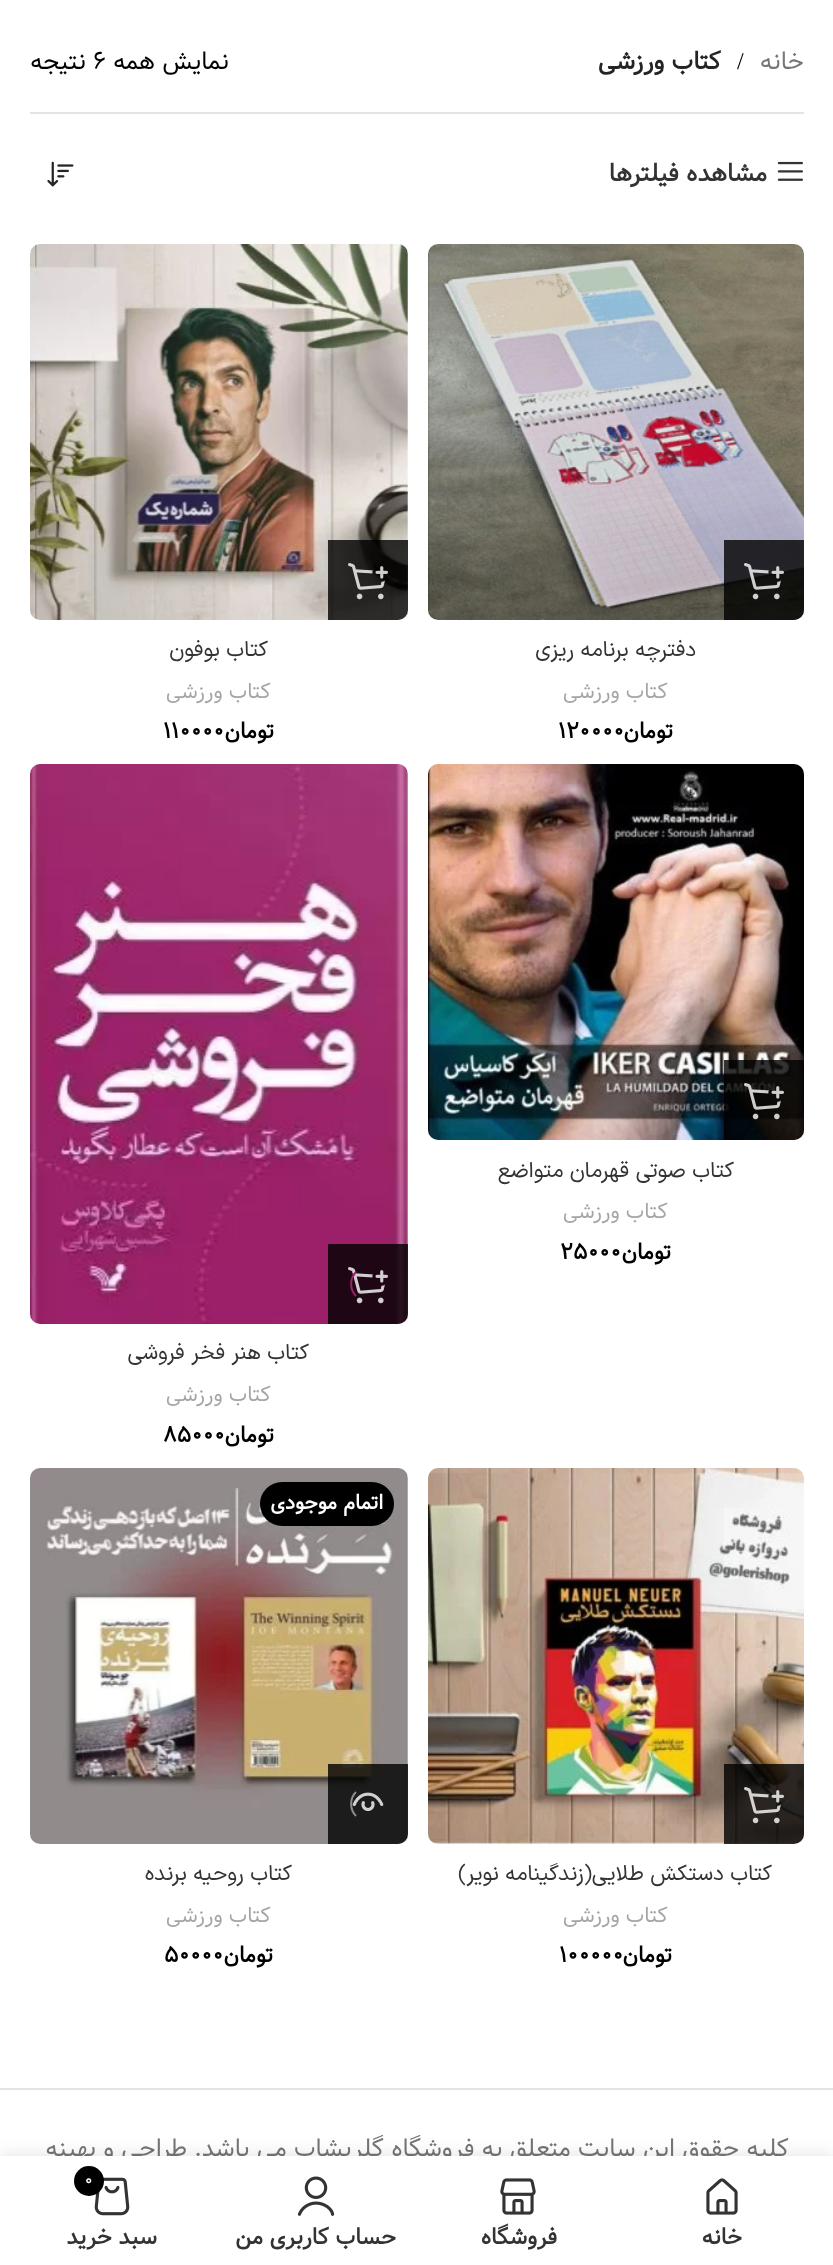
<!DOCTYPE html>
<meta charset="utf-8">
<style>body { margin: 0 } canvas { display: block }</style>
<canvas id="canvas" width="833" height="2265"></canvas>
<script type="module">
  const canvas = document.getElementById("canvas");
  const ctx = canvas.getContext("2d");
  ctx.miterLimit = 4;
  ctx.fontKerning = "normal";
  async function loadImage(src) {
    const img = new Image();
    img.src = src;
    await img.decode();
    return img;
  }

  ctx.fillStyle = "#ffffff";
  ctx.fillRect(0, 0, 833, 2265);
  ctx.fillStyle = "#e4e4e4";
  ctx.fillRect(30, 112, 774, 2);
  ctx.direction = "rtl";
  ctx.font = "24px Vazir";
  ctx.fillStyle = "#767676";
  ctx.fillText("خانه", 804, 69);
  ctx.direction = "ltr";
  ctx.font = "24px Liberation Serif";
  ctx.fillStyle = "#000000";
  ctx.fillText("/", 737, 69);
  ctx.direction = "rtl";
  ctx.font = "bold 24px Vazir";
  ctx.fillStyle = "#242424";
  ctx.fillText("کتاب ورزشی", 721, 69);
  ctx.font = "24px Vazir";
  ctx.fillStyle = "#000000";
  ctx.fillText("نمایش همه", 229, 69);
  ctx.direction = "ltr";
  ctx.fillText("6", 93, 69);
  ctx.direction = "rtl";
  ctx.fillText("نتیجه", 86, 69);
  ctx.drawImage(await loadImage("img1.png"), 777, 161, 26, 20);
  ctx.font = "bold 24px Vazir";
  ctx.fillStyle = "#333333";
  ctx.fillText("مشاهده فیلترها", 767, 181);
  ctx.drawImage(await loadImage("img2.png"), 47, 161, 27, 26);
  ctx.drawImage(await loadImage("img3.png"), 428, 244, 376, 376);
  ctx.fillStyle = "rgba(0, 0, 0, 0.8)";
  ctx.beginPath();
  ctx.roundRect(724, 540, 80, 80, [0, 0, 10, 0]);
  ctx.fill();
  ctx.drawImage(await loadImage("img4.png"), 744, 563, 40, 37);
  ctx.font = "21.6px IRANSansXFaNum";
  ctx.fillStyle = "#333333";
  ctx.fillText("دفترچه برنامه ریزی", 696, 656);
  ctx.font = "20.5px Vazir";
  ctx.fillStyle = "#a5a5a5";
  ctx.fillText("کتاب ورزشی", 668, 698);
  ctx.font = "bold 21.6px Vazir";
  ctx.fillStyle = "#000000";
  ctx.fillText("تومان", 673, 738);
  ctx.direction = "ltr";
  ctx.fillText("120000", 558, 738);
  ctx.drawImage(await loadImage("img5.png"), 30, 244, 378, 376);
  ctx.fillStyle = "rgba(0, 0, 0, 0.8)";
  ctx.beginPath();
  ctx.roundRect(328, 540, 80, 80, [0, 0, 10, 0]);
  ctx.fill();
  ctx.drawImage(await loadImage("img6.png"), 348, 563, 40, 37);
  ctx.direction = "rtl";
  ctx.font = "21.6px IRANSansXFaNum";
  ctx.fillStyle = "#333333";
  ctx.fillText("کتاب بوفون", 268, 656);
  ctx.font = "20.5px Vazir";
  ctx.fillStyle = "#a5a5a5";
  ctx.fillText("کتاب ورزشی", 271, 698);
  ctx.font = "bold 21.6px Vazir";
  ctx.fillStyle = "#000000";
  ctx.fillText("تومان", 274, 738);
  ctx.direction = "ltr";
  ctx.fillText("110000", 163, 738);
  ctx.drawImage(await loadImage("img7.png"), 428, 764, 376, 376);
  ctx.fillStyle = "rgba(0, 0, 0, 0.8)";
  ctx.beginPath();
  ctx.roundRect(724, 1060, 80, 80, [0, 0, 10, 0]);
  ctx.fill();
  ctx.drawImage(await loadImage("img8.png"), 744, 1083, 40, 37);
  ctx.direction = "rtl";
  ctx.font = "21.6px IRANSansXFaNum";
  ctx.fillStyle = "#333333";
  ctx.fillText("کتاب صوتی قهرمان متواضع", 734, 1177);
  ctx.font = "20.5px Vazir";
  ctx.fillStyle = "#a5a5a5";
  ctx.fillText("کتاب ورزشی", 668, 1218);
  ctx.font = "bold 21.6px Vazir";
  ctx.fillStyle = "#000000";
  ctx.fillText("تومان", 671, 1259);
  ctx.direction = "ltr";
  ctx.fillText("25000", 560, 1259);
  ctx.drawImage(await loadImage("img9.png"), 30, 764, 378, 560);
  ctx.fillStyle = "rgba(0, 0, 0, 0.8)";
  ctx.beginPath();
  ctx.roundRect(328, 1244, 80, 80, [0, 0, 10, 0]);
  ctx.fill();
  ctx.drawImage(await loadImage("img10.png"), 348, 1267, 40, 37);
  ctx.beginPath();
  ctx.moveTo(356, 1296);
  ctx.bezierCurveTo(349.5, 1289.5, 349.5, 1278.5, 356, 1272);
  ctx.strokeStyle = "#9b2069";
  ctx.lineWidth = 2;
  ctx.stroke();
  ctx.direction = "rtl";
  ctx.font = "21.6px IRANSansXFaNum";
  ctx.fillStyle = "#333333";
  ctx.fillText("کتاب هنر فخر فروشی", 309, 1359);
  ctx.font = "20.5px Vazir";
  ctx.fillStyle = "#a5a5a5";
  ctx.fillText("کتاب ورزشی", 271, 1401);
  ctx.font = "bold 21.6px Vazir";
  ctx.fillStyle = "#000000";
  ctx.fillText("تومان", 274, 1442);
  ctx.direction = "ltr";
  ctx.fillText("85000", 163, 1442);
  ctx.drawImage(await loadImage("img11.png"), 428, 1468, 376, 376);
  ctx.fillStyle = "rgba(0, 0, 0, 0.8)";
  ctx.beginPath();
  ctx.roundRect(724, 1764, 80, 80, [0, 0, 10, 0]);
  ctx.fill();
  ctx.drawImage(await loadImage("img12.png"), 744, 1787, 40, 37);
  ctx.direction = "rtl";
  ctx.font = "21.6px IRANSansXFaNum";
  ctx.fillStyle = "#333333";
  ctx.fillText("کتاب دستکش طلایی(زندگینامه نویر)", 772, 1880);
  ctx.font = "20.5px Vazir";
  ctx.fillStyle = "#a5a5a5";
  ctx.fillText("کتاب ورزشی", 668, 1922);
  ctx.font = "bold 21.6px Vazir";
  ctx.fillStyle = "#000000";
  ctx.fillText("تومان", 672, 1962);
  ctx.direction = "ltr";
  ctx.fillText("100000", 559, 1962);
  ctx.drawImage(await loadImage("img13.png"), 30, 1468, 378, 376);
  ctx.beginPath();
  ctx.roundRect(260, 1482, 134, 44, 22);
  ctx.fill();
  ctx.direction = "rtl";
  ctx.font = "bold 20px Vazir";
  ctx.fillStyle = "#ffffff";
  ctx.fillText("اتمام موجودی", 383, 1509);
  ctx.fillStyle = "rgba(0, 0, 0, 0.8)";
  ctx.beginPath();
  ctx.roundRect(328, 1764, 80, 80, [0, 0, 10, 0]);
  ctx.fill();
  ctx.drawImage(await loadImage("img14.png"), 352, 1792, 32, 19);
  ctx.beginPath();
  ctx.moveTo(356, 1816);
  ctx.bezierCurveTo(349.5, 1809.5, 349.5, 1798.5, 356, 1792);
  ctx.strokeStyle = "#928b8b";
  ctx.stroke();
  ctx.font = "21.6px IRANSansXFaNum";
  ctx.fillStyle = "#333333";
  ctx.fillText("کتاب روحیه برنده", 292, 1880);
  ctx.font = "20.5px Vazir";
  ctx.fillStyle = "#a5a5a5";
  ctx.fillText("کتاب ورزشی", 271, 1922);
  ctx.font = "bold 21.6px Vazir";
  ctx.fillStyle = "#000000";
  ctx.fillText("تومان", 273, 1962);
  ctx.direction = "ltr";
  ctx.fillText("50000", 164, 1962);
  ctx.fillStyle = "#e4e4e4";
  ctx.fillRect(0, 2088, 833, 2);
  ctx.direction = "rtl";
  ctx.font = "24px Vazir";
  ctx.fillStyle = "#767676";
  ctx.fillText("کلیه حقوق این سایت متعلق به فروشگاه گلریشاپ می باشد. طراحی و بهینه", 789, 2156);
  ctx.fillStyle = "rgba(0, 0, 0, 0.12)";
  ctx.filter = "blur(9px)";
  ctx.beginPath();
  ctx.rect(0, 2156, 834, 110);
  ctx.fill();
  ctx.filter = "none";
  ctx.fillStyle = "#ffffff";
  ctx.fillRect(0, 2156, 833, 109);
  ctx.drawImage(await loadImage("img15.png"), 706, 2178, 32, 37);
  ctx.font = "bold 22px Vazir";
  ctx.fillStyle = "#333333";
  ctx.fillText("خانه", 742, 2244);
  ctx.drawImage(await loadImage("img16.png"), 500, 2178, 36, 37);
  ctx.fillText("فروشگاه", 557, 2244);
  ctx.drawImage(await loadImage("img17.png"), 297, 2176, 38, 40);
  ctx.fillText("حساب کاربری من", 396, 2244);
  ctx.drawImage(await loadImage("img18.png"), 94, 2177, 36, 39);
  ctx.fillStyle = "#000000";
  ctx.beginPath();
  ctx.arc(89, 2181, 15, 0, Math.PI * 2);
  ctx.fill();
  ctx.direction = "ltr";
  ctx.font = "18px Vazir";
  ctx.fillStyle = "#ffffff";
  ctx.fillText("0", 84, 2186);
  ctx.direction = "rtl";
  ctx.font = "bold 22px Vazir";
  ctx.fillStyle = "#333333";
  ctx.fillText("سبد خرید", 157, 2244);
</script>
